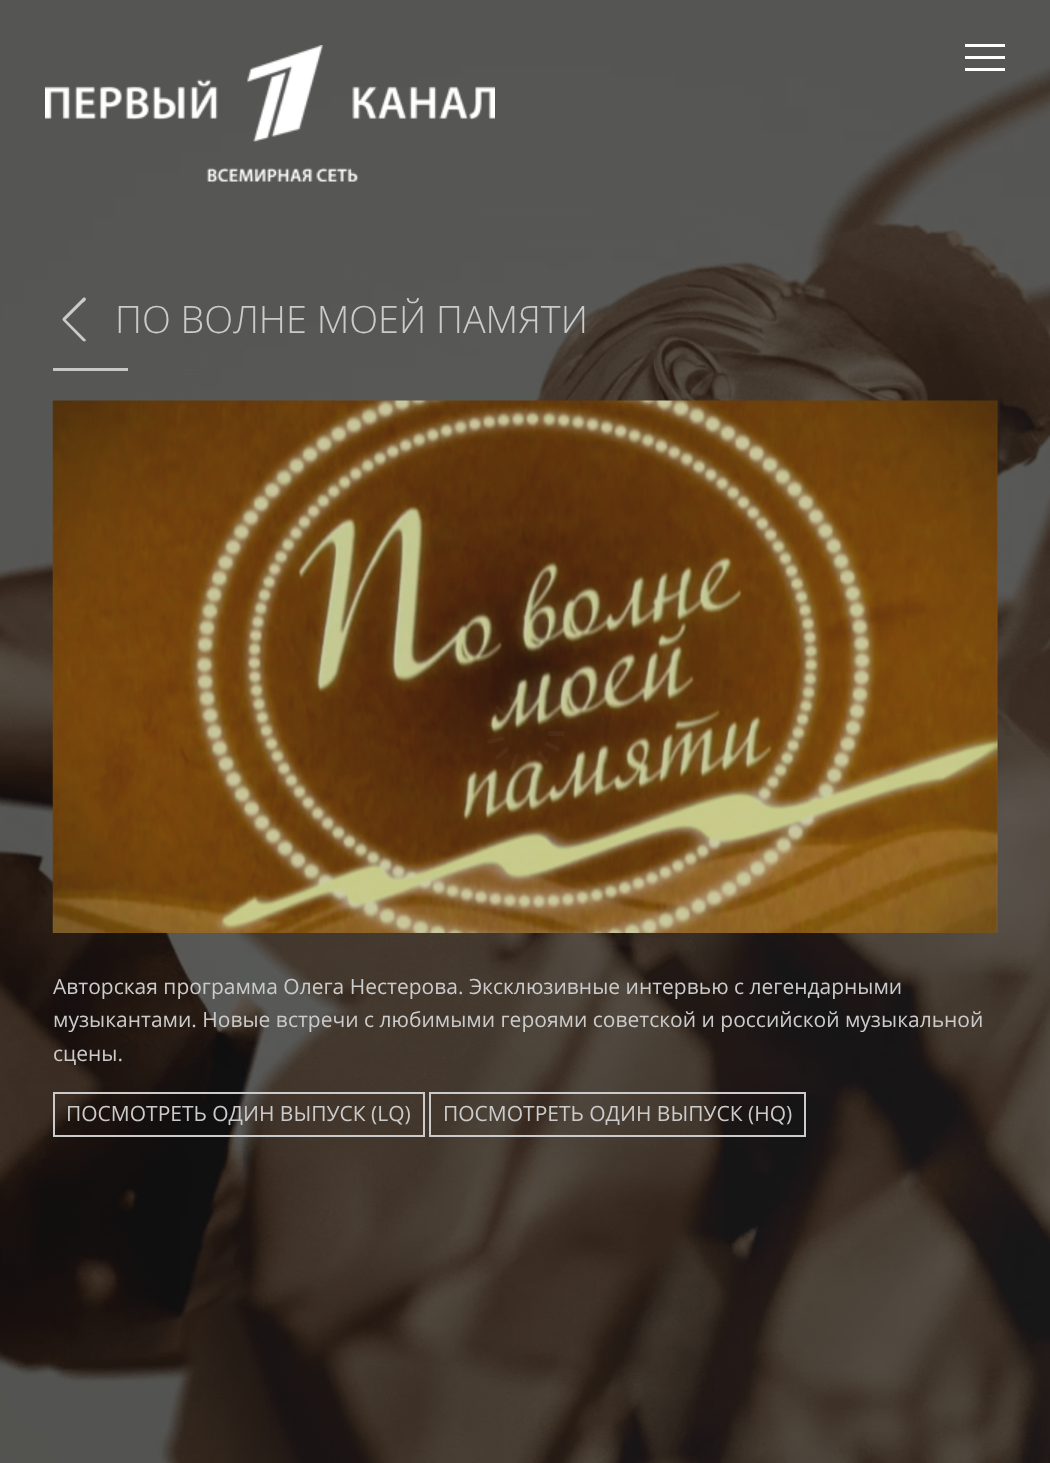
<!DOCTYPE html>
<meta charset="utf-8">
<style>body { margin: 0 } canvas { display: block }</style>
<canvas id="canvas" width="1050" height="1463"></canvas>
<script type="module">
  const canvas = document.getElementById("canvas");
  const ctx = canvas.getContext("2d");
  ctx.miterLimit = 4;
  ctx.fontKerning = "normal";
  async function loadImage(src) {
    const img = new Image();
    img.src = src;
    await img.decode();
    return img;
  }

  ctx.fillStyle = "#ffffff";
  ctx.fillRect(0, 0, 1050, 1463);
  ctx.drawImage(await loadImage("img1.png"), 0, 0, 1050, 1463);
  ctx.drawImage(await loadImage("img2.png"), 45, 45, 450, 137);
  ctx.fillRect(965, 56, 40, 3);
  ctx.fillRect(965, 44, 40, 3);
  ctx.fillRect(965, 68, 40, 3);
  ctx.fillStyle = "#cbcbcb";
  ctx.beginPath();
  ctx.moveTo(65, 319);
  ctx.lineTo(85.5, 339.5);
  ctx.bezierCurveTo(86, 339.5, 86, 340.5, 85.5, 341);
  ctx.lineTo(84.5, 341.5);
  ctx.bezierCurveTo(82.5, 341.5, 81.5, 339, 80, 338);
  ctx.lineTo(63, 320.5);
  ctx.lineTo(62.5, 319.5);
  ctx.bezierCurveTo(63, 318.5, 64.5, 318, 65, 319);
  ctx.closePath();
  ctx.fill();
  ctx.beginPath();
  ctx.moveTo(63, 318);
  ctx.lineTo(83.5, 297.5);
  ctx.bezierCurveTo(84, 297.5, 84.5, 297.5, 85, 297.5);
  ctx.lineTo(86, 299);
  ctx.bezierCurveTo(86, 301, 83.5, 302, 82, 303.5);
  ctx.lineTo(65, 320.5);
  ctx.lineTo(64, 320.5);
  ctx.bezierCurveTo(62.5, 320.5, 62.5, 319, 63, 318);
  ctx.closePath();
  ctx.fill();
  ctx.font = "300 37.75px Open Sans";
  ctx.fillText("ПО ВОЛНЕ МОЕЙ ПАМЯТИ", 115, 333);
  ctx.fillStyle = "#c7c7c7";
  ctx.fillRect(53, 368, 75, 3);
  ctx.drawImage(await loadImage("img3.png"), 52, 400, 946, 533);
  ctx.font = "21px Open Sans";
  ctx.fillStyle = "#cbcbcb";
  ctx.fillText("Авторская программа Олега Нестерова. Эксклюзивные интервью с легендарными", 53, 994);
  ctx.fillText("музыкантами. Новые встречи с любимыми героями советской и российской музыкальной", 53, 1027);
  ctx.fillText("сцены.", 53, 1061);
  ctx.strokeStyle = "#cbcbcb";
  ctx.lineWidth = 2;
  ctx.strokeRect(54, 1093, 370, 43);
  ctx.fillText("ПОСМОТРЕТЬ ОДИН ВЫПУСК (LQ)", 66, 1121);
  ctx.strokeRect(430, 1093, 375, 43);
  ctx.fillText("ПОСМОТРЕТЬ ОДИН ВЫПУСК (HQ)", 443, 1121);
  ctx.fillStyle = "rgba(255, 255, 255, 0.04)";
  ctx.beginPath();
  ctx.moveTo(505.5, 718.5);
  ctx.lineTo(495, 709.5);
  ctx.bezierCurveTo(494.5, 709, 494.5, 708.5, 495, 708);
  ctx.bezierCurveTo(496.5, 705, 498, 706, 500, 708);
  ctx.lineTo(508.5, 715.5);
  ctx.bezierCurveTo(510, 717, 507, 720, 505.5, 718.5);
  ctx.closePath();
  ctx.moveTo(514.5, 711);
  ctx.lineTo(509.5, 698.5);
  ctx.bezierCurveTo(509.5, 697.5, 509.5, 697, 510, 696.5);
  ctx.bezierCurveTo(513, 695, 513.5, 696.5, 514.5, 699);
  ctx.lineTo(518.5, 710);
  ctx.bezierCurveTo(519, 712, 515, 713, 514.5, 711);
  ctx.closePath();
  ctx.moveTo(525.5, 708.5);
  ctx.lineTo(526.5, 695);
  ctx.bezierCurveTo(527, 694.5, 527.5, 694, 528, 694);
  ctx.bezierCurveTo(531.5, 693.5, 531, 695, 531, 698);
  ctx.lineTo(529.5, 709.5);
  ctx.bezierCurveTo(529, 711.5, 525, 710.5, 525.5, 708.5);
  ctx.closePath();
  ctx.moveTo(536.5, 711.5);
  ctx.lineTo(543, 702.5);
  ctx.bezierCurveTo(544.5, 700, 545, 698.5, 547.5, 701);
  ctx.bezierCurveTo(548, 701.5, 548, 702, 548, 702.5);
  ctx.lineTo(540, 714.5);
  ctx.bezierCurveTo(538.5, 715.5, 535.5, 713.5, 536.5, 711.5);
  ctx.closePath();
  ctx.fill();
  ctx.fillRect(548, 731, 16, 5);
  ctx.beginPath();
  ctx.moveTo(547.5, 741.5);
  ctx.lineTo(557.5, 746.5);
  ctx.bezierCurveTo(560, 748, 561.5, 748.5, 559, 751.5);
  ctx.bezierCurveTo(559, 752, 558, 752, 557.5, 752);
  ctx.lineTo(545, 745.5);
  ctx.bezierCurveTo(543.5, 744.5, 545.5, 740.5, 547.5, 741.5);
  ctx.closePath();
  ctx.fill();
  ctx.beginPath();
  ctx.moveTo(540.5, 751);
  ctx.lineTo(548.5, 762.5);
  ctx.bezierCurveTo(548.5, 763, 548.5, 763.5, 548, 764);
  ctx.bezierCurveTo(546, 766.5, 545, 765, 543.5, 763);
  ctx.lineTo(537, 753.5);
  ctx.bezierCurveTo(536, 751.5, 539.5, 749.5, 540.5, 751);
  ctx.closePath();
  ctx.moveTo(530, 756.5);
  ctx.lineTo(532, 770);
  ctx.bezierCurveTo(532, 770.5, 531.5, 771, 531, 771.5);
  ctx.bezierCurveTo(527.5, 772.5, 527.5, 770.5, 527, 768);
  ctx.lineTo(525.5, 756.5);
  ctx.bezierCurveTo(526, 754.5, 530, 754, 530, 756.5);
  ctx.closePath();
  ctx.moveTo(519, 756);
  ctx.lineTo(514, 769);
  ctx.bezierCurveTo(514, 769.5, 513, 770, 512.5, 769.5);
  ctx.bezierCurveTo(509, 769, 510, 767.5, 511, 765);
  ctx.lineTo(515, 754.5);
  ctx.bezierCurveTo(516, 752.5, 519.5, 754, 519, 756);
  ctx.closePath();
  ctx.moveTo(508.5, 750.5);
  ctx.lineTo(498.5, 759.5);
  ctx.bezierCurveTo(498, 760, 497, 760, 496.5, 759.5);
  ctx.bezierCurveTo(494, 757.5, 495.5, 756.5, 497.5, 754.5);
  ctx.lineTo(506, 747);
  ctx.bezierCurveTo(507.5, 746, 510, 749, 508.5, 750.5);
  ctx.closePath();
  ctx.moveTo(502.5, 740.5);
  ctx.lineTo(489, 744);
  ctx.bezierCurveTo(488.5, 744, 487.5, 743.5, 487.5, 743);
  ctx.bezierCurveTo(486, 740, 487.5, 740, 490.5, 739);
  ctx.lineTo(501.5, 736.5);
  ctx.bezierCurveTo(503.5, 736, 504.5, 740, 502.5, 740.5);
  ctx.closePath();
  ctx.moveTo(501, 729.5);
  ctx.lineTo(487.5, 726.5);
  ctx.bezierCurveTo(487, 726, 487, 725.5, 487, 725);
  ctx.bezierCurveTo(487, 721.5, 488.5, 722, 491, 722.5);
  ctx.lineTo(502.5, 725.5);
  ctx.bezierCurveTo(504, 726, 503, 730, 501, 729.5);
  ctx.closePath();
  ctx.fill();
  ctx.beginPath();
  ctx.moveTo(545, 719.5);
  ctx.lineTo(557.5, 713);
  ctx.bezierCurveTo(558, 713, 558.5, 713, 559, 713.5);
  ctx.bezierCurveTo(561, 716, 559.5, 717, 557, 718);
  ctx.lineTo(547, 723.5);
  ctx.bezierCurveTo(545, 724, 543.5, 720.5, 545, 719.5);
  ctx.closePath();
  ctx.fill();
</script>
